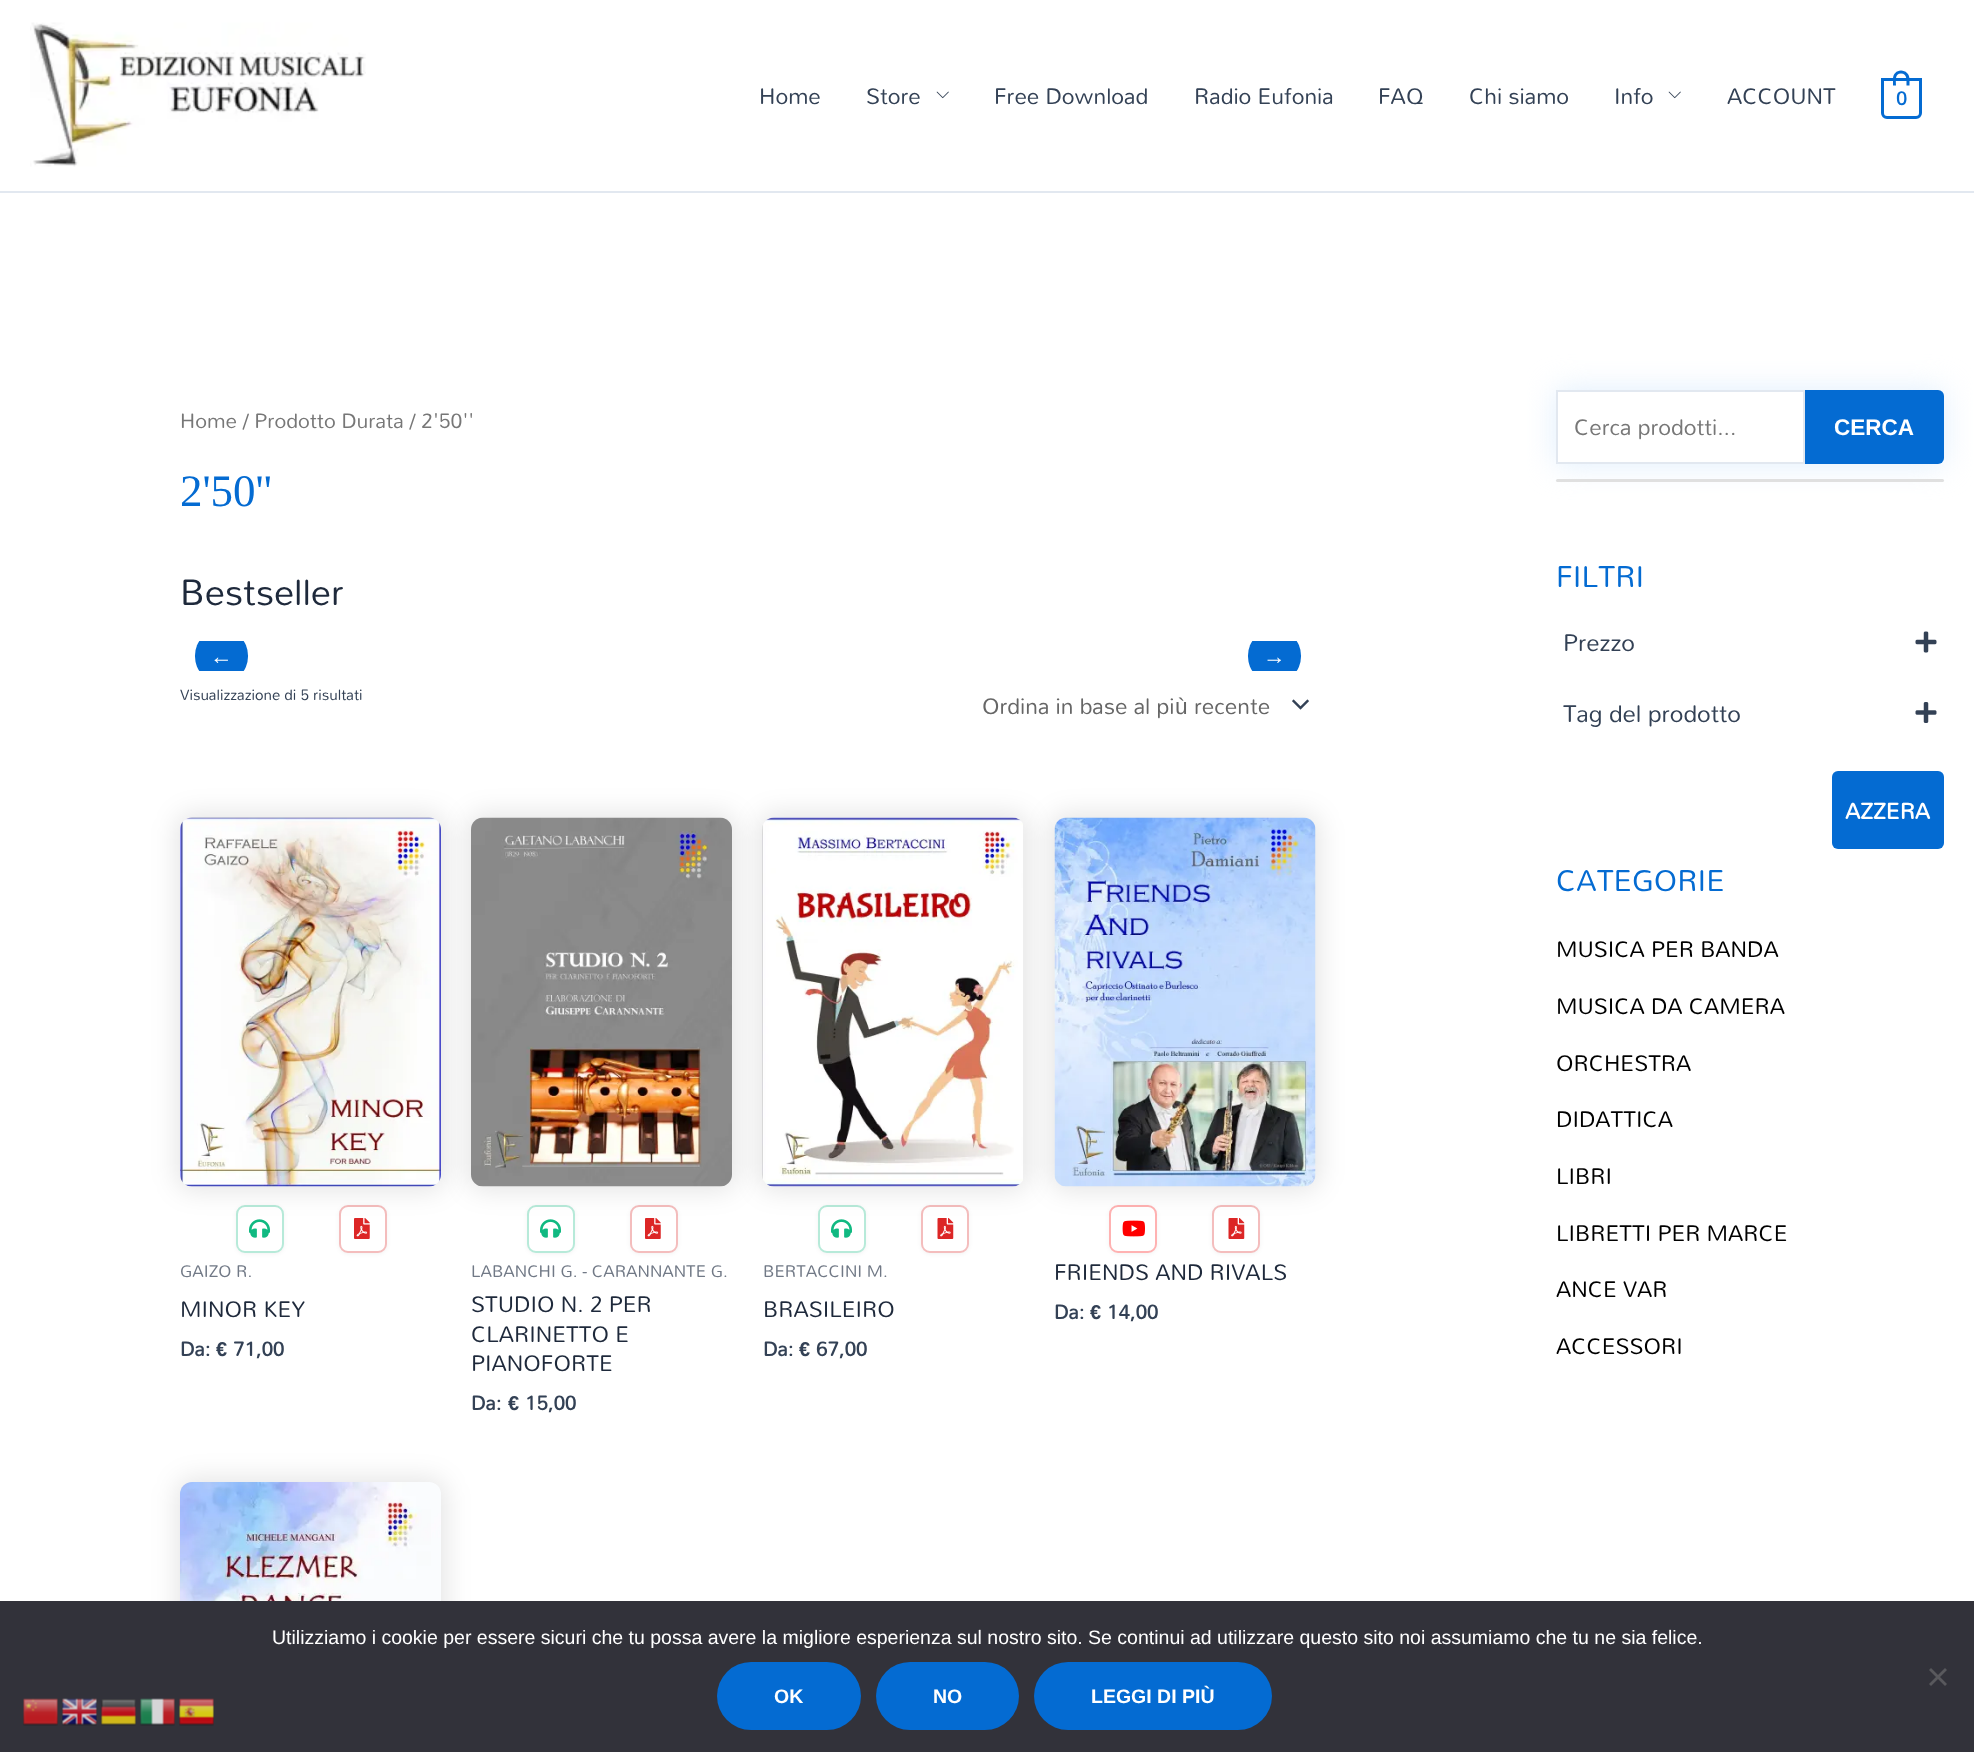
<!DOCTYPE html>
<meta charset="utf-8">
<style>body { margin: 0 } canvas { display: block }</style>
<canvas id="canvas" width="1974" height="1752"></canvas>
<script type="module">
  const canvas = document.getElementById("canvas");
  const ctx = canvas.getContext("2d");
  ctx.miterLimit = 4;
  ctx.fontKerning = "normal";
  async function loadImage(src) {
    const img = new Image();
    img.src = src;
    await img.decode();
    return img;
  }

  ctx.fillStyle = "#ffffff";
  ctx.fillRect(0, 0, 1974, 1752);
  ctx.fillStyle = "#e2e8f0";
  ctx.fillRect(0, 191, 1974, 2);
  ctx.drawImage(await loadImage("img1.png"), 30, 22, 336, 145);
  ctx.font = "22.5px Mandali";
  ctx.fillStyle = "#334155";
  ctx.fillText("Home", 759, 104);
  ctx.fillText("Store", 866, 104);
  ctx.drawImage(await loadImage("img2.png"), 936, 91, 13, 8);
  ctx.fillText("Free Download", 994, 104);
  ctx.fillText("Radio Eufonia", 1194, 104);
  ctx.fillText("FAQ", 1378, 104);
  ctx.fillText("Chi siamo", 1469, 104);
  ctx.fillText("Info", 1614, 104);
  ctx.drawImage(await loadImage("img2.png"), 1668, 91, 13, 8);
  ctx.fillText("ACCOUNT", 1727, 104);
  ctx.beginPath();
  ctx.roundRect(1882.5, 79.5, 38, 38, [0, 0, 4.5, 4.5]);
  ctx.strokeStyle = "#046bd2";
  ctx.lineWidth = 3;
  ctx.stroke();
  ctx.fillStyle = "#046bd2";
  ctx.beginPath();
  ctx.moveTo(1901, 70.5);
  ctx.bezierCurveTo(1905.5, 70.5, 1909.5, 74, 1909.5, 79);
  ctx.lineTo(1909.5, 85.5);
  ctx.lineTo(1893, 85.5);
  ctx.lineTo(1893, 79);
  ctx.bezierCurveTo(1893, 74, 1896.5, 70.5, 1901, 70.5);
  ctx.closePath();
  ctx.moveTo(1901, 73.5);
  ctx.bezierCurveTo(1907.5, 73.5, 1906.5, 81, 1906.5, 85.5);
  ctx.lineTo(1896, 85.5);
  ctx.bezierCurveTo(1896, 81, 1894.5, 73.5, 1901, 73.5);
  ctx.closePath();
  ctx.fill("evenodd");
  ctx.font = "bold 19px Mandali";
  ctx.fillText("0", 1896, 105);
  ctx.font = "20.75px Mandali";
  ctx.fillStyle = "#777777";
  ctx.fillText("Home / Prodotto Durata / 2'50''", 180, 428);
  ctx.font = "45px Liberation Serif";
  ctx.fillStyle = "#046bd2";
  ctx.fillText("2'50''", 180, 506);
  ctx.font = "36.5px Mandali";
  ctx.fillStyle = "#1e293b";
  ctx.fillText("Bestseller", 180, 605);
  ctx.save();
  ctx.beginPath();
  ctx.rect(180, 641, 1136, 30);
  ctx.clip();
  ctx.fillStyle = "#046bd2";
  ctx.beginPath();
  ctx.roundRect(195, 629, 53, 54, 26.5);
  ctx.fill();
  ctx.restore();
  ctx.font = "bold 22.5px Liberation Sans";
  ctx.fillStyle = "#ffffff";
  ctx.fillText("←", 210, 664);
  ctx.save();
  ctx.beginPath();
  ctx.rect(180, 641, 1136, 30);
  ctx.clip();
  ctx.fillStyle = "#046bd2";
  ctx.beginPath();
  ctx.roundRect(1248, 629, 53, 54, 26.5);
  ctx.fill();
  ctx.restore();
  ctx.fillText("→", 1263, 664);
  ctx.font = "15px Mandali";
  ctx.fillStyle = "#334155";
  ctx.fillText("Visualizzazione di 5 risultati", 180, 700);
  ctx.drawImage(await loadImage("img3.png"), 1292, 699, 17, 11);
  ctx.font = "22.5px Mandali";
  ctx.fillStyle = "#666666";
  ctx.fillText("Ordina in base al pi", 982, 714);
  ctx.font = "22.5px Liberation Sans";
  ctx.fillText("ù", 1175, 714);
  ctx.font = "22.5px Mandali";
  ctx.fillText("recente", 1194, 714);
  ctx.fillStyle = "rgba(0, 0, 0, 0.05)";
  ctx.filter = "blur(2px)";
  ctx.beginPath();
  ctx.roundRect(236, 1206, 48, 48, 9);
  ctx.fill();
  ctx.filter = "none";
  ctx.fillStyle = "#ffffff";
  ctx.beginPath();
  ctx.roundRect(236, 1205, 48, 48, 9);
  ctx.fill();
  ctx.beginPath();
  ctx.roundRect(237, 1206, 46, 46, 8);
  ctx.strokeStyle = "rgba(16, 185, 129, 0.3)";
  ctx.lineWidth = 2;
  ctx.stroke();
  ctx.drawImage(await loadImage("img5.png"), 249, 1219, 21, 19);
  ctx.fillStyle = "rgba(0, 0, 0, 0.05)";
  ctx.filter = "blur(2px)";
  ctx.beginPath();
  ctx.roundRect(339, 1206, 48, 48, 9);
  ctx.fill();
  ctx.filter = "none";
  ctx.fillStyle = "#ffffff";
  ctx.beginPath();
  ctx.roundRect(339, 1205, 48, 48, 9);
  ctx.fill();
  ctx.beginPath();
  ctx.roundRect(340, 1206, 46, 46, 8);
  ctx.strokeStyle = "rgba(220, 38, 38, 0.3)";
  ctx.stroke();
  ctx.drawImage(await loadImage("img6.png"), 354, 1218, 16, 21);
  ctx.fillStyle = "rgba(0, 0, 0, 0.1)";
  ctx.filter = "blur(13px)";
  ctx.beginPath();
  ctx.roundRect(176, 813, 270, 378, 17);
  ctx.fill();
  ctx.filter = "none";
  ctx.drawImage(await loadImage("img4.png"), 180, 817, 261, 370);
  ctx.font = "16.9px Mandali";
  ctx.fillStyle = "#717986";
  ctx.fillText("GAIZO R.", 180, 1277);
  ctx.font = "22.5px Mandali";
  ctx.fillStyle = "#1e293b";
  ctx.fillText("MINOR KEY", 180, 1317);
  ctx.font = "bold 20px Mandali";
  ctx.fillStyle = "#334155";
  ctx.fillText("Da:", 180, 1356);
  ctx.font = "bold 20px Liberation Sans";
  ctx.fillText("€", 216, 1356);
  ctx.font = "bold 20px Mandali";
  ctx.fillText("71,00", 233, 1356);
  ctx.fillStyle = "rgba(0, 0, 0, 0.05)";
  ctx.filter = "blur(2px)";
  ctx.beginPath();
  ctx.roundRect(527, 1206, 48, 48, 9);
  ctx.fill();
  ctx.filter = "none";
  ctx.fillStyle = "#ffffff";
  ctx.beginPath();
  ctx.roundRect(527, 1205, 48, 48, 9);
  ctx.fill();
  ctx.beginPath();
  ctx.roundRect(528, 1206, 46, 46, 8);
  ctx.strokeStyle = "rgba(16, 185, 129, 0.3)";
  ctx.stroke();
  ctx.drawImage(await loadImage("img5.png"), 540, 1219, 21, 19);
  ctx.fillStyle = "rgba(0, 0, 0, 0.05)";
  ctx.filter = "blur(2px)";
  ctx.beginPath();
  ctx.roundRect(630, 1206, 48, 48, 9);
  ctx.fill();
  ctx.filter = "none";
  ctx.fillStyle = "#ffffff";
  ctx.beginPath();
  ctx.roundRect(630, 1205, 48, 48, 9);
  ctx.fill();
  ctx.beginPath();
  ctx.roundRect(631, 1206, 46, 46, 8);
  ctx.strokeStyle = "rgba(220, 38, 38, 0.3)";
  ctx.stroke();
  ctx.drawImage(await loadImage("img6.png"), 645, 1218, 16, 21);
  ctx.fillStyle = "rgba(0, 0, 0, 0.1)";
  ctx.filter = "blur(13px)";
  ctx.beginPath();
  ctx.roundRect(467, 813, 270, 378, 17);
  ctx.fill();
  ctx.filter = "none";
  ctx.drawImage(await loadImage("img7.png"), 471, 817, 261, 370);
  ctx.font = "16.9px Mandali";
  ctx.fillStyle = "#717986";
  ctx.fillText("LABANCHI G. - CARANNANTE G.", 471, 1277);
  ctx.font = "22.5px Mandali";
  ctx.fillStyle = "#1e293b";
  ctx.fillText("STUDIO N. 2 PER", 471, 1312);
  ctx.fillText("CLARINETTO E", 471, 1342);
  ctx.fillText("PIANOFORTE", 471, 1371);
  ctx.font = "bold 20px Mandali";
  ctx.fillStyle = "#334155";
  ctx.fillText("Da:", 471, 1410);
  ctx.font = "bold 20px Liberation Sans";
  ctx.fillText("€", 508, 1410);
  ctx.font = "bold 20px Mandali";
  ctx.fillText("15,00", 525, 1410);
  ctx.fillStyle = "rgba(0, 0, 0, 0.05)";
  ctx.filter = "blur(2px)";
  ctx.beginPath();
  ctx.roundRect(818, 1206, 48, 48, 9);
  ctx.fill();
  ctx.filter = "none";
  ctx.fillStyle = "#ffffff";
  ctx.beginPath();
  ctx.roundRect(818, 1205, 48, 48, 9);
  ctx.fill();
  ctx.beginPath();
  ctx.roundRect(819, 1206, 46, 46, 8);
  ctx.strokeStyle = "rgba(16, 185, 129, 0.3)";
  ctx.stroke();
  ctx.drawImage(await loadImage("img5.png"), 831, 1219, 21, 19);
  ctx.fillStyle = "rgba(0, 0, 0, 0.05)";
  ctx.filter = "blur(2px)";
  ctx.beginPath();
  ctx.roundRect(921, 1206, 48, 48, 9);
  ctx.fill();
  ctx.filter = "none";
  ctx.fillStyle = "#ffffff";
  ctx.beginPath();
  ctx.roundRect(921, 1205, 48, 48, 9);
  ctx.fill();
  ctx.beginPath();
  ctx.roundRect(922, 1206, 46, 46, 8);
  ctx.strokeStyle = "rgba(220, 38, 38, 0.3)";
  ctx.stroke();
  ctx.drawImage(await loadImage("img9.png"), 937, 1218, 17, 21);
  ctx.fillStyle = "rgba(0, 0, 0, 0.1)";
  ctx.filter = "blur(13px)";
  ctx.beginPath();
  ctx.roundRect(758, 813, 271, 378, 17);
  ctx.fill();
  ctx.filter = "none";
  ctx.drawImage(await loadImage("img8.png"), 762, 817, 261, 370);
  ctx.font = "16.9px Mandali";
  ctx.fillStyle = "#717986";
  ctx.fillText("BERTACCINI M.", 763, 1277);
  ctx.font = "22.5px Mandali";
  ctx.fillStyle = "#1e293b";
  ctx.fillText("BRASILEIRO", 763, 1317);
  ctx.font = "bold 20px Mandali";
  ctx.fillStyle = "#334155";
  ctx.fillText("Da:", 763, 1356);
  ctx.font = "bold 20px Liberation Sans";
  ctx.fillText("€", 799, 1356);
  ctx.font = "bold 20px Mandali";
  ctx.fillText("67,00", 816, 1356);
  ctx.fillStyle = "rgba(0, 0, 0, 0.05)";
  ctx.filter = "blur(2px)";
  ctx.beginPath();
  ctx.roundRect(1109, 1206, 48, 48, 9);
  ctx.fill();
  ctx.filter = "none";
  ctx.fillStyle = "#ffffff";
  ctx.beginPath();
  ctx.roundRect(1109, 1205, 48, 48, 9);
  ctx.fill();
  ctx.beginPath();
  ctx.roundRect(1110, 1206, 46, 46, 8);
  ctx.strokeStyle = "rgba(255, 0, 0, 0.3)";
  ctx.stroke();
  ctx.drawImage(await loadImage("img11.png"), 1122, 1220, 23, 17);
  ctx.fillStyle = "rgba(0, 0, 0, 0.05)";
  ctx.filter = "blur(2px)";
  ctx.beginPath();
  ctx.roundRect(1212, 1206, 48, 48, 9);
  ctx.fill();
  ctx.filter = "none";
  ctx.fillStyle = "#ffffff";
  ctx.beginPath();
  ctx.roundRect(1212, 1205, 48, 48, 9);
  ctx.fill();
  ctx.beginPath();
  ctx.roundRect(1213, 1206, 46, 46, 8);
  ctx.strokeStyle = "rgba(220, 38, 38, 0.3)";
  ctx.stroke();
  ctx.drawImage(await loadImage("img9.png"), 1228, 1218, 17, 21);
  ctx.fillStyle = "rgba(0, 0, 0, 0.1)";
  ctx.filter = "blur(13px)";
  ctx.beginPath();
  ctx.roundRect(1050, 813, 270, 378, 17);
  ctx.fill();
  ctx.filter = "none";
  ctx.drawImage(await loadImage("img10.png"), 1054, 817, 262, 370);
  ctx.font = "22.5px Mandali";
  ctx.fillStyle = "#1e293b";
  ctx.fillText("FRIENDS AND RIVALS", 1054, 1280);
  ctx.font = "bold 20px Mandali";
  ctx.fillStyle = "#334155";
  ctx.fillText("Da:", 1054, 1319);
  ctx.font = "bold 20px Liberation Sans";
  ctx.fillText("€", 1090, 1319);
  ctx.font = "bold 20px Mandali";
  ctx.fillText("14,00", 1107, 1319);
  ctx.fillStyle = "rgba(0, 0, 0, 0.1)";
  ctx.filter = "blur(13px)";
  ctx.beginPath();
  ctx.roundRect(176, 1478, 270, 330, 17);
  ctx.fill();
  ctx.filter = "none";
  ctx.drawImage(await loadImage("img12.png"), 180, 1482, 261, 119);
  ctx.fillStyle = "#dfeefd";
  ctx.filter = "blur(15px)";
  ctx.beginPath();
  ctx.rect(1556, 390, 388, 74);
  ctx.fill();
  ctx.filter = "none";
  ctx.fillStyle = "#ffffff";
  ctx.beginPath();
  ctx.rect(1557, 391, 247, 72);
  ctx.fill();
  ctx.strokeStyle = "#e2e8f0";
  ctx.stroke();
  ctx.font = "22.5px Mandali";
  ctx.fillStyle = "#777777";
  ctx.fillText("Cerca prodotti...", 1574, 435);
  ctx.fillStyle = "#046bd2";
  ctx.beginPath();
  ctx.roundRect(1805, 390, 139, 74, [0, 6, 6, 0]);
  ctx.fill();
  ctx.font = "bold 22.5px Liberation Sans";
  ctx.fillStyle = "#ffffff";
  ctx.fillText("CERCA", 1834, 435);
  ctx.fillStyle = "#e0e0e0";
  ctx.beginPath();
  ctx.roundRect(1556, 479, 388, 3, 1.5);
  ctx.fill();
  ctx.font = "30px Mandali";
  ctx.fillStyle = "#046bd2";
  ctx.fillText("FILTRI", 1556, 587);
  ctx.font = "24px Mandali";
  ctx.fillStyle = "#334155";
  ctx.fillText("Prezzo", 1563, 651);
  ctx.drawImage(await loadImage("img13.png"), 1915, 631, 22, 22);
  ctx.fillText("Tag del prodotto", 1563, 722);
  ctx.drawImage(await loadImage("img14.png"), 1915, 702, 22, 21);
  ctx.fillStyle = "#046bd2";
  ctx.beginPath();
  ctx.roundRect(1832, 771, 112, 78, 6);
  ctx.fill();
  ctx.font = "bold 22.5px Mandali";
  ctx.fillStyle = "#ffffff";
  ctx.fillText("AZZERA", 1845, 819);
  ctx.font = "30px Mandali";
  ctx.fillStyle = "#046bd2";
  ctx.fillText("CATEGORIE", 1556, 891);
  ctx.font = "22.5px Mandali";
  ctx.fillStyle = "#000000";
  ctx.fillText("MUSICA PER BANDA", 1556, 957);
  ctx.fillText("MUSICA DA CAMERA", 1556, 1014);
  ctx.fillText("ORCHESTRA", 1556, 1071);
  ctx.fillText("DIDATTICA", 1556, 1127);
  ctx.fillText("LIBRI", 1556, 1184);
  ctx.fillText("LIBRETTI PER MARCE", 1556, 1241);
  ctx.fillText("ANCE VAR", 1556, 1297);
  ctx.fillText("ACCESSORI", 1556, 1354);
  ctx.fillStyle = "#32323a";
  ctx.fillRect(0, 1601, 1974, 151);
  ctx.font = "19.5px Liberation Sans";
  ctx.fillStyle = "#ffffff";
  ctx.fillText("Utilizziamo i cookie per essere sicuri che tu possa avere la migliore esperienza sul nostro sito. Se continui ad utilizzare questo sito noi assumiamo che tu ne sia felice.", 272, 1644);
  ctx.fillStyle = "#59595d";
  ctx.beginPath();
  ctx.moveTo(1945, 1668);
  ctx.lineTo(1947, 1670);
  ctx.lineTo(1931, 1686);
  ctx.lineTo(1929, 1684);
  ctx.closePath();
  ctx.fill();
  ctx.beginPath();
  ctx.moveTo(1929, 1670);
  ctx.lineTo(1931, 1668);
  ctx.lineTo(1947, 1684);
  ctx.lineTo(1945, 1686);
  ctx.closePath();
  ctx.fill();
  ctx.fillStyle = "#046bd2";
  ctx.beginPath();
  ctx.roundRect(717, 1662, 144, 68, 34);
  ctx.fill();
  ctx.font = "bold 19.5px Liberation Sans";
  ctx.fillStyle = "#ffffff";
  ctx.fillText("OK", 774, 1703);
  ctx.fillStyle = "#046bd2";
  ctx.beginPath();
  ctx.roundRect(876, 1662, 143, 68, 34);
  ctx.fill();
  ctx.fillStyle = "#ffffff";
  ctx.fillText("NO", 933, 1703);
  ctx.fillStyle = "#046bd2";
  ctx.beginPath();
  ctx.roundRect(1034, 1662, 238, 68, 34);
  ctx.fill();
  ctx.fillStyle = "#ffffff";
  ctx.fillText("LEGGI DI PIÙ", 1091, 1703);
  ctx.drawImage(await loadImage("img15.png"), 23, 1698, 35, 28);
  ctx.drawImage(await loadImage("img16.png"), 62, 1698, 35, 28);
  ctx.drawImage(await loadImage("img17.png"), 101, 1699, 35, 27);
  ctx.drawImage(await loadImage("img18.png"), 140, 1698, 35, 28);
  ctx.drawImage(await loadImage("img19.png"), 179, 1698, 35, 28);
</script>
